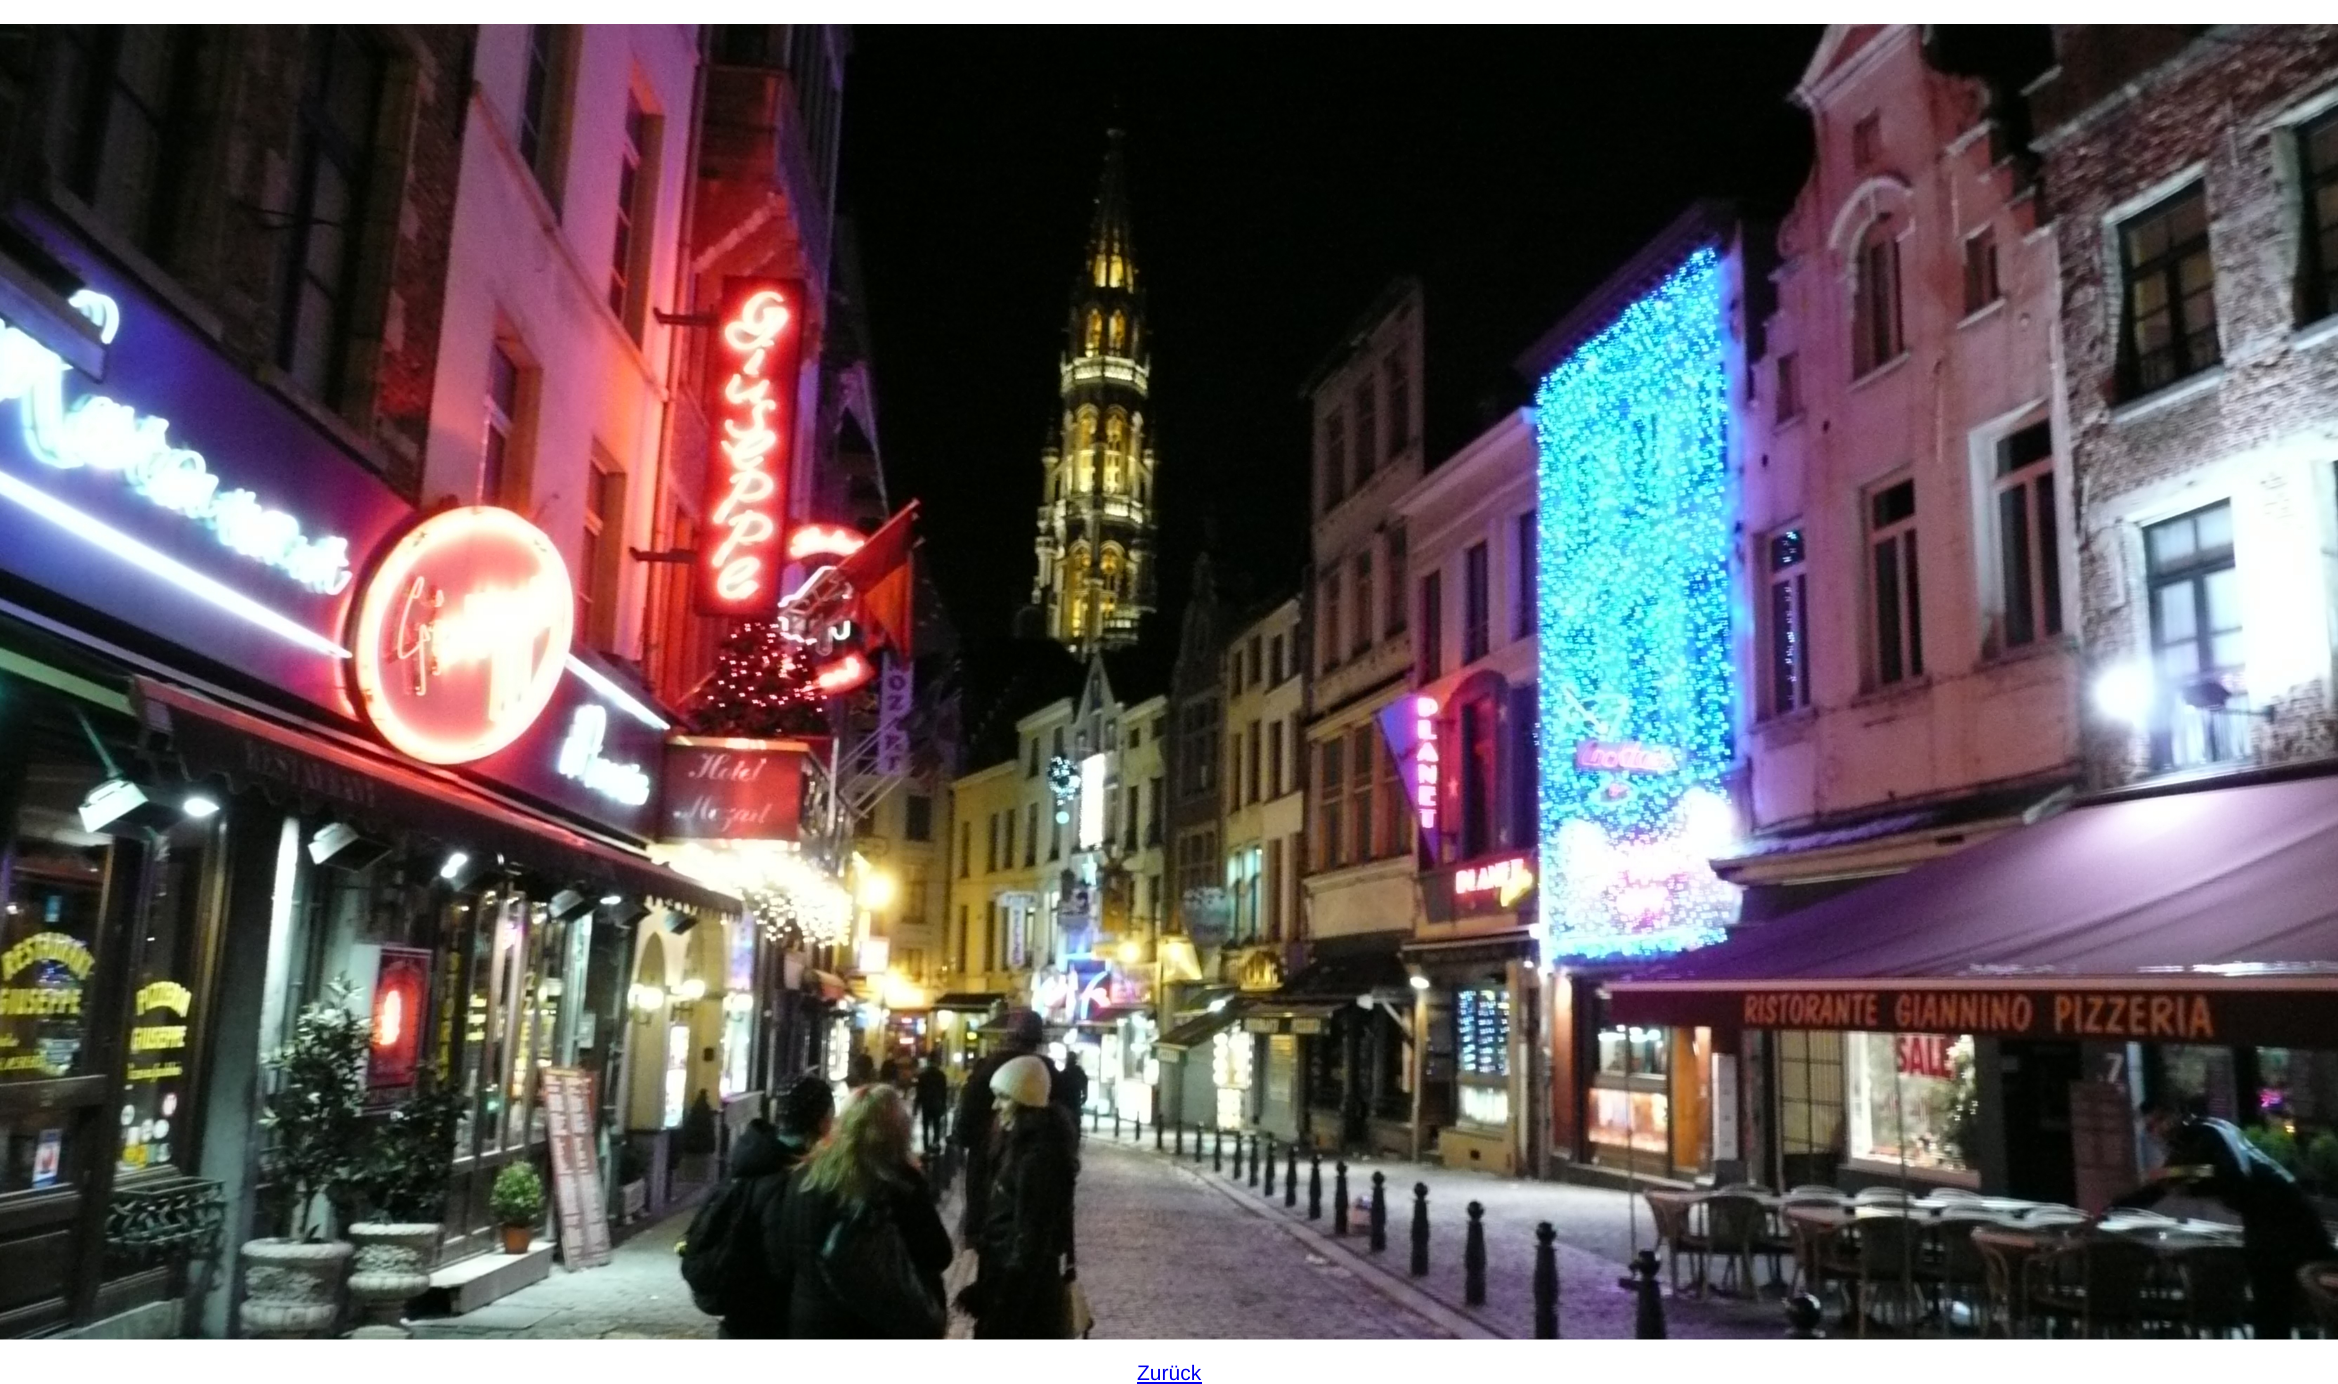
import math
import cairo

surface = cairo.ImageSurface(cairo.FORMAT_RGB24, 2338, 1384)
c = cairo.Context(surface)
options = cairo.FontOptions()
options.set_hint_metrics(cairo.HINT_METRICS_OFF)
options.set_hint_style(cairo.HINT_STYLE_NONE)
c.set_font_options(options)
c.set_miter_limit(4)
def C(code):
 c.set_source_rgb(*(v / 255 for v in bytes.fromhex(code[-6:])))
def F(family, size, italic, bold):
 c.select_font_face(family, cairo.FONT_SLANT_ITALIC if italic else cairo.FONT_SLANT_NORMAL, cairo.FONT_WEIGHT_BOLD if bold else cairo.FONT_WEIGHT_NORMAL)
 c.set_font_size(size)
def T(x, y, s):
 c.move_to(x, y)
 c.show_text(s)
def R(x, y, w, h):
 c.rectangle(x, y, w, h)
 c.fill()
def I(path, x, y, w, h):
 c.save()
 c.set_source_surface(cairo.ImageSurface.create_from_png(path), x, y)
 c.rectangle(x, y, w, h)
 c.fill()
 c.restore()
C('ffffff')
c.paint()
I('1.png',0,24,2338,1316)
F('Liberation Sans',21,0,0)
C('0000ee')
T(1137,1380,'Zurück')
R(1137,1382,65,2)
surface.write_to_png('o.png')
